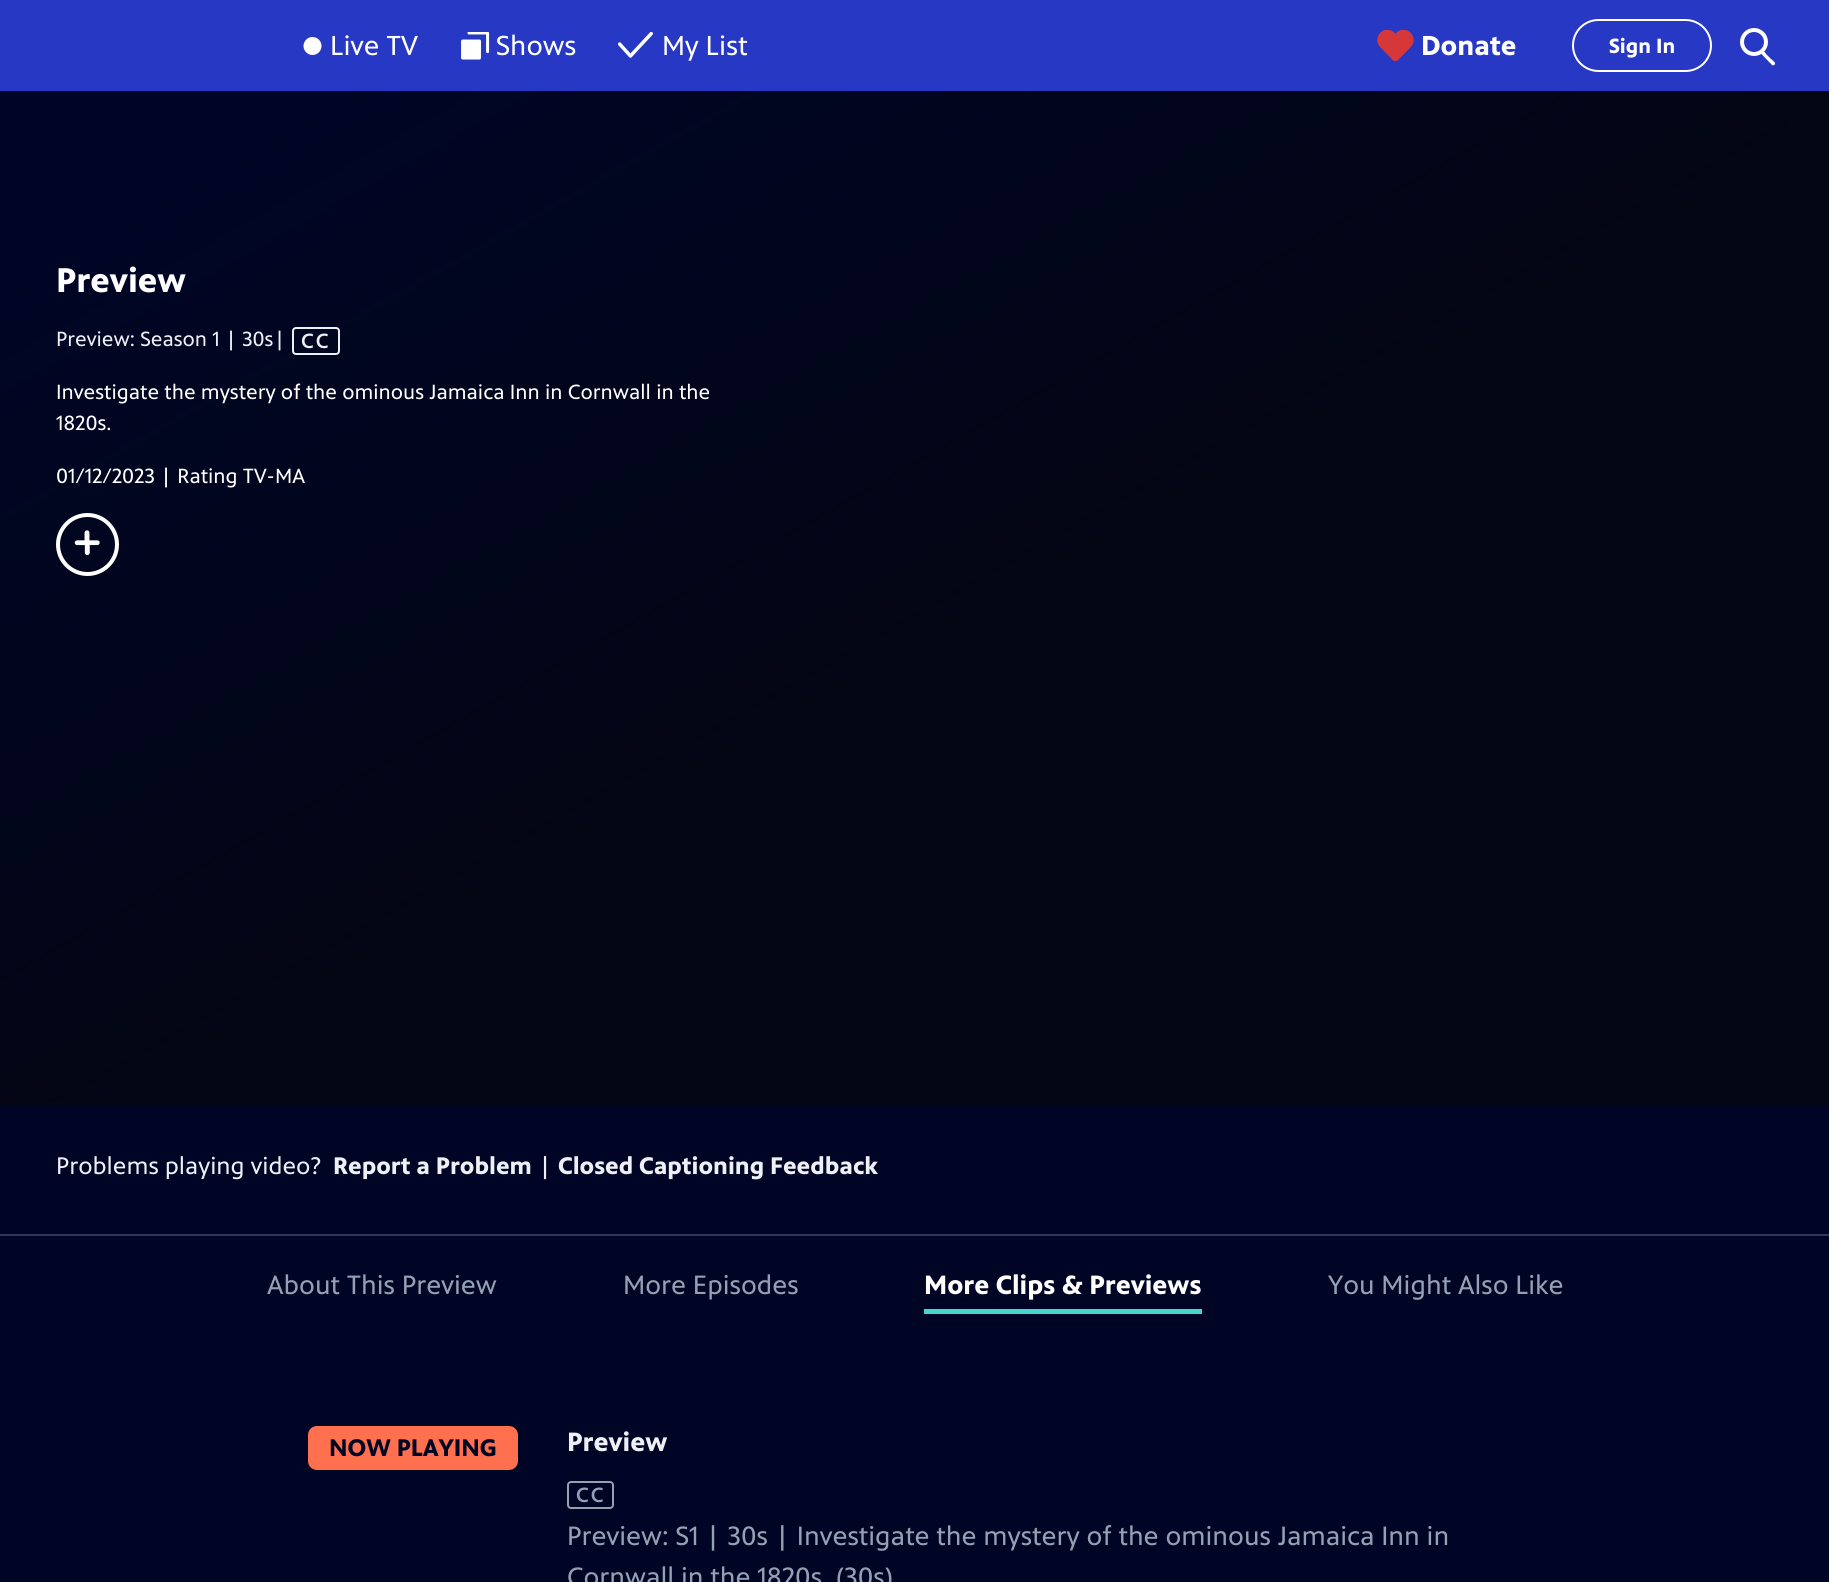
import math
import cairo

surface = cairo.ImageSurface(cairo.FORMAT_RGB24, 1829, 1582)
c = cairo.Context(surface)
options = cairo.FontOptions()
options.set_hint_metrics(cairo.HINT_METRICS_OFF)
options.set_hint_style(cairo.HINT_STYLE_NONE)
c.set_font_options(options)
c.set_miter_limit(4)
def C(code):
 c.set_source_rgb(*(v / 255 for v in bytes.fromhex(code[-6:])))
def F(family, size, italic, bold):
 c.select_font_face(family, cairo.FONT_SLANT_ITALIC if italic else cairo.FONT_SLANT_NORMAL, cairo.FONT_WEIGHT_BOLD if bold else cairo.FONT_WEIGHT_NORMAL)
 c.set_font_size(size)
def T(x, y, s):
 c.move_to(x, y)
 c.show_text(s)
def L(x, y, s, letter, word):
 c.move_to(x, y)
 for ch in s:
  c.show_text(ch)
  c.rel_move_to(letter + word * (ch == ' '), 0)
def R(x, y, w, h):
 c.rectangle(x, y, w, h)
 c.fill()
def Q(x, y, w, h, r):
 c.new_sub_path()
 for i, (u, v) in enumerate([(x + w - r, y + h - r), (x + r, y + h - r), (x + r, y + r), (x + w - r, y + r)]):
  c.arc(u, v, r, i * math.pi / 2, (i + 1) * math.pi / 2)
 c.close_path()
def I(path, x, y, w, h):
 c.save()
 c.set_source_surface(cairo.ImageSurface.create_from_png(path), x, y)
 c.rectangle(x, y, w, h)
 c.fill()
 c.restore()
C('000525')
c.paint()
C('2638c4')
R(0,0,1829,91)
C('ffffff')
c.arc(312.5,46,9,0,2 * math.pi)
c.fill()
F('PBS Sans',28,0,0)
T(330,55,'Live TV')
I('1.png',461,32,29,28)
T(496,55,'Shows')
I('2.png',618,32,35,26)
T(662,55,'My List')
I('3.png',1377,30,37,31)
F('PBS Sans',28,0,1)
T(1421,55,'Donate')
Q(1573,20,138,51,25.5)
c.stroke()
F('PBS Sans',21,0,1)
T(1609,53,'Sign In')
c.new_path()
c.arc(1754,42,12,0,2 * math.pi)
c.set_line_width(4)
c.stroke()
c.new_path()
c.move_to(1772,65)
c.line_to(1760,52.5)
c.line_to(1760,51)
c.curve_to(1762,48,1766,53.5,1766.5,54.5)
c.line_to(1770.5,58.5)
c.curve_to(1771.5,59.5,1774.5,61.5,1775,63)
c.curve_to(1775.5,65,1773,66,1772,65)
c.close_path()
c.fill()
C('040613')
R(0,91,1829,1015)
gradient = cairo.LinearGradient(471,-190,1359,1380)
gradient.add_color_stop_rgba(.1,0,0.02,0.145,1)
gradient.add_color_stop_rgba(.55,0,0.02,0.145,0)
c.set_source(gradient)
R(0,91,1788,1011)
F('PBS Sans',35,0,1)
C('ffffff')
T(56,292,'Preview')
F('PBS Sans',21,0,0)
C('eef0f5')
T(56,346,'Preview: Season 1 | 30s|')
Q(293,328,46,26,3)
c.set_line_width(2)
c.stroke()
F('PBS Sans Medium',21,0,0)
L(301,348,'CC',2,0)
F('PBS Sans',21,0,0)
C('ffffff')
T(56,399,'Investigate the mystery of the ominous Jamaica Inn in Cornwall in the')
T(56,430,'1820s.')
T(56,483,'01/12/2023 | Rating TV-MA')
c.new_path()
c.arc(87.5,544.5,29.5,0,2 * math.pi)
c.set_line_width(4)
c.stroke()
I('4.png',74,530,26,26)
F('PBS Sans',24.5,0,0)
C('eef0f5')
T(56,1174,'Problems playing video?')
F('PBS Sans',24.5,0,1)
T(333,1174,'Report a Problem')
F('PBS Sans',24.5,0,0)
T(538,1174,'|')
F('PBS Sans',24.5,0,1)
T(558,1174,'Closed Captioning Feedback')
C('2e3a55')
R(0,1234,1829,2)
F('PBS Sans',27.05,0,0)
C('94a1b2')
T(267,1294,'About This Preview')
T(623,1294,'More Episodes')
F('PBS Sans',27.05,0,1)
C('ffffff')
T(924,1294,'More Clips & Previews')
C('46d4cd')
R(924,1309,278,5)
F('PBS Sans',27.05,0,0)
C('94a1b2')
T(1328,1294,'You Might Also Like')
C('fe704e')
Q(308,1426,210,44,9)
c.fill()
F('PBS Sans',24.5,0,1)
C('000525')
T(329,1456,'NOW PLAYING')
F('PBS Sans',27.05,0,1)
C('eef0f5')
T(567,1451,'Preview')
Q(568,1482,45,26,3)
C('94a1b2')
c.set_line_width(2)
c.stroke()
F('PBS Sans Medium',21,0,0)
L(576,1502,'CC',2,0)
F('PBS Sans',27.05,0,0)
T(567,1545,'Preview: S1 | 30s | Investigate the mystery of the ominous Jamaica Inn in')
T(567,1586,'Cornwall in the 1820s. (30s)')
surface.write_to_png('o.png')
